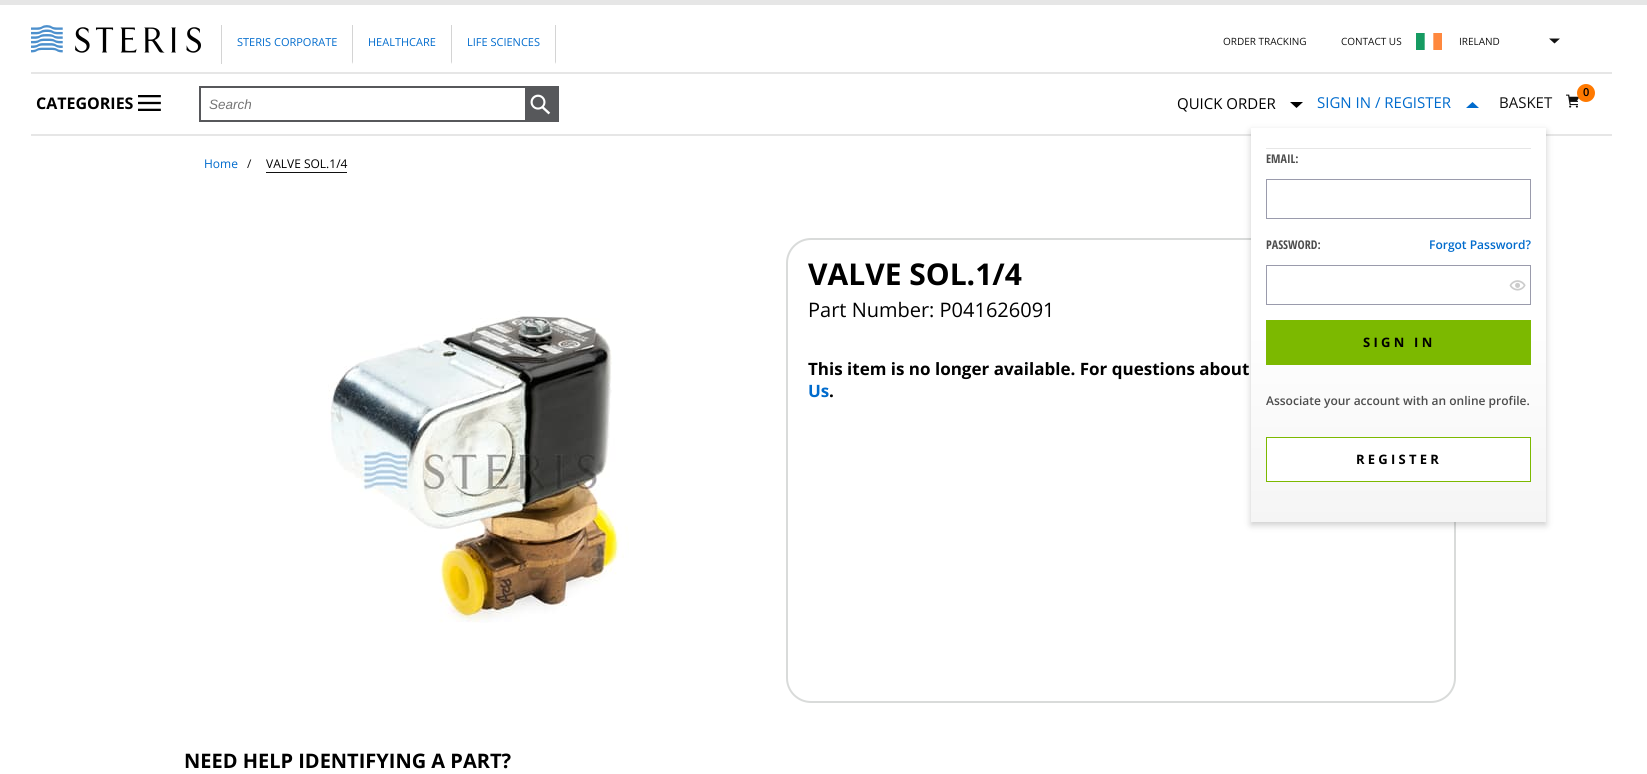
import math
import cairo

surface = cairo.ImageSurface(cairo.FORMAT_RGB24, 1647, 774)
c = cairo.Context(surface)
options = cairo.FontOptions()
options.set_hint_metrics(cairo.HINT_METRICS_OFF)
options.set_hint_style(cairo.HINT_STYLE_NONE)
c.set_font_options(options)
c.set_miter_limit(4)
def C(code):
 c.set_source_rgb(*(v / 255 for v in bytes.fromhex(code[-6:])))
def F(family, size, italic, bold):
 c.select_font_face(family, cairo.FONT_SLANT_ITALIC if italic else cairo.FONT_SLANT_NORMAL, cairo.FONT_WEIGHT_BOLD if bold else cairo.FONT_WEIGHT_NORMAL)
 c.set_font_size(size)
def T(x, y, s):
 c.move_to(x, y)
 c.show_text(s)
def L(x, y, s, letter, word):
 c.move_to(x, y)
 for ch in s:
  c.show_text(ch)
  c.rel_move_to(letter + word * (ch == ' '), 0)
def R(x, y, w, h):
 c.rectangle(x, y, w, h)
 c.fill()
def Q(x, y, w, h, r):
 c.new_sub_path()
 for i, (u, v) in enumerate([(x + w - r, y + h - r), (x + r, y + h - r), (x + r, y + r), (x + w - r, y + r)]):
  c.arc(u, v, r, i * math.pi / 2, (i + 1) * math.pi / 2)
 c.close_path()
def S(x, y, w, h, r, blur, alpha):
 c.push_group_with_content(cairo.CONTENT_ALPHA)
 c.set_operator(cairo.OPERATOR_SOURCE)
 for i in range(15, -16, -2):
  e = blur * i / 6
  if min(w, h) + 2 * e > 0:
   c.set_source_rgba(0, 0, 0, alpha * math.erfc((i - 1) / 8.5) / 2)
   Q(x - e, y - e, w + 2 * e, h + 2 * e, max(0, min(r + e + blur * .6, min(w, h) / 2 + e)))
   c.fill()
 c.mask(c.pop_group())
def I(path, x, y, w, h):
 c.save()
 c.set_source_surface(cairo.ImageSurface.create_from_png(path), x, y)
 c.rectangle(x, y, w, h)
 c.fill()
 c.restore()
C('ffffff')
c.paint()
C('e6e6e6')
R(0,0,1647,5)
I('1.png',31,25,170,28)
R(31,72,1581,2)
C('d4d4d4')
R(221,25,1,39)
c.new_path()
c.move_to(353,25)
c.line_to(353,64)
c.line_to(352,62)
c.line_to(352,25)
c.close_path()
c.fill()
F('Open Sans',11,0,0)
C('006bcd')
T(237,46,'STERIS CORPORATE')
C('d4d4d4')
c.new_path()
c.move_to(452,25)
c.line_to(452,64)
c.line_to(451,62)
c.line_to(451,25)
c.close_path()
c.fill()
C('006bcd')
T(368,46,'HEALTHCARE')
C('d4d4d4')
c.new_path()
c.move_to(556,25)
c.line_to(556,64)
c.line_to(555,62)
c.line_to(555,25)
c.close_path()
c.fill()
C('006bcd')
T(467,46,'LIFE SCIENCES')
F('Open Sans',10,0,0)
C('111111')
T(1223,45,'ORDER TRACKING')
T(1341,45,'CONTACT US')
I('2.png',1416,33,26,17)
c.new_path()
c.move_to(1560,38.5)
c.line_to(1549,38.5)
c.line_to(1554.5,43.5)
c.close_path()
c.fill()
T(1459,45,'IRELAND')
C('e6e6e6')
R(31,134,1581,2)
F('Open Sans',16,0,1)
C('000000')
T(36,109,'CATEGORIES')
I('3.png',138,95,23,16)
F('Open Sans',15,0,0)
T(1177,109,'QUICK ORDER')
c.new_path()
c.move_to(1303,102)
c.line_to(1290,102)
c.line_to(1296.5,108)
c.close_path()
c.fill()
c.rectangle(200,87,358,34)
C('57585b')
c.stroke()
F('Liberation Sans',13.5,1,0)
C('757575')
T(209,109,'Search')
C('57585b')
R(525,88,32,32)
I('4.png',530,94,21,21)
F('Open Sans',15,0,0)
C('006bcd')
T(1317,108,'SIGN IN / REGISTER')
c.new_path()
c.move_to(1466,108)
c.line_to(1479,108)
c.line_to(1472.5,102)
c.close_path()
c.fill()
I('5.png',1566,94,13,14)
C('ff7900')
c.arc(1586,93,9,0,2 * math.pi)
c.fill()
F('Open Sans SemiBold',11,0,0)
C('000000')
T(1583,96,'0')
F('Open Sans',15,0,0)
C('111111')
T(1499,108,'BASKET')
Q(787,239,668,463,24)
C('d9dbda')
c.stroke()
C('000000')
S(1251,131,295,394,0,3.5,.2)
gradient = cairo.LinearGradient(1399,128,1399,522)
gradient.add_color_stop_rgba(.46,1,1,1,1)
gradient.add_color_stop_rgba(1,0.961,0.961,0.961,1)
c.set_source(gradient)
R(1251,128,295,394)
F('Open Sans Condensed',12,0,1)
C('4d4d4d')
T(1266,163,'EMAIL:')
c.rectangle(1266.5,179.5,264,39)
C('9a9bac')
c.set_line_width(1)
c.stroke()
C('4d4d4d')
T(1266,249,'PASSWORD:')
F('Open Sans SemiBold',12,0,0)
C('006bcd')
T(1429,249,'Forgot Password?')
c.rectangle(1266.5,265.5,264,39)
C('9a9bac')
c.stroke()
I('6.png',1509,280,17,11)
C('7cb900')
R(1266,320,265,45)
F('Open Sans',13,0,1)
C('000000')
L(1363,347,'SIGN IN',3.25,0)
C('e6e6e6')
R(1266,148,265,1)
F('Open Sans SemiBold',12,0,0)
C('4d4d4d')
T(1266,405,'Associate your account with an online profile.')
C('ffffff')
c.rectangle(1266.5,437.5,264,44)
c.fill_preserve()
C('7cb900')
c.stroke()
F('Open Sans',13,0,1)
C('000000')
L(1356,464,'REGISTER',3.25,0)
F('Open Sans',12,0,0)
C('006bcd')
T(204,168,'Home')
C('111111')
T(247,168,'∕')
C('000000')
T(266,168,'VALVE SOL.1/4')
C('111111')
R(266,172,81,1)
I('7.png',328,311,301,312)
F('Open Sans',30,0,1)
C('000000')
T(808,285,'VALVE SOL.1/4')
F('Open Sans',20,0,0)
T(808,317,'Part Number: P041626091')
F('Open Sans',17,0,1)
T(808,375,'This item is no longer available. For questions about')
C('006bcd')
T(808,397,'Us')
C('000000')
T(829,397,'.')
F('Open Sans',20,0,1)
T(184,768,'NEED HELP IDENTIFYING A PART?')
surface.write_to_png('o.png')
